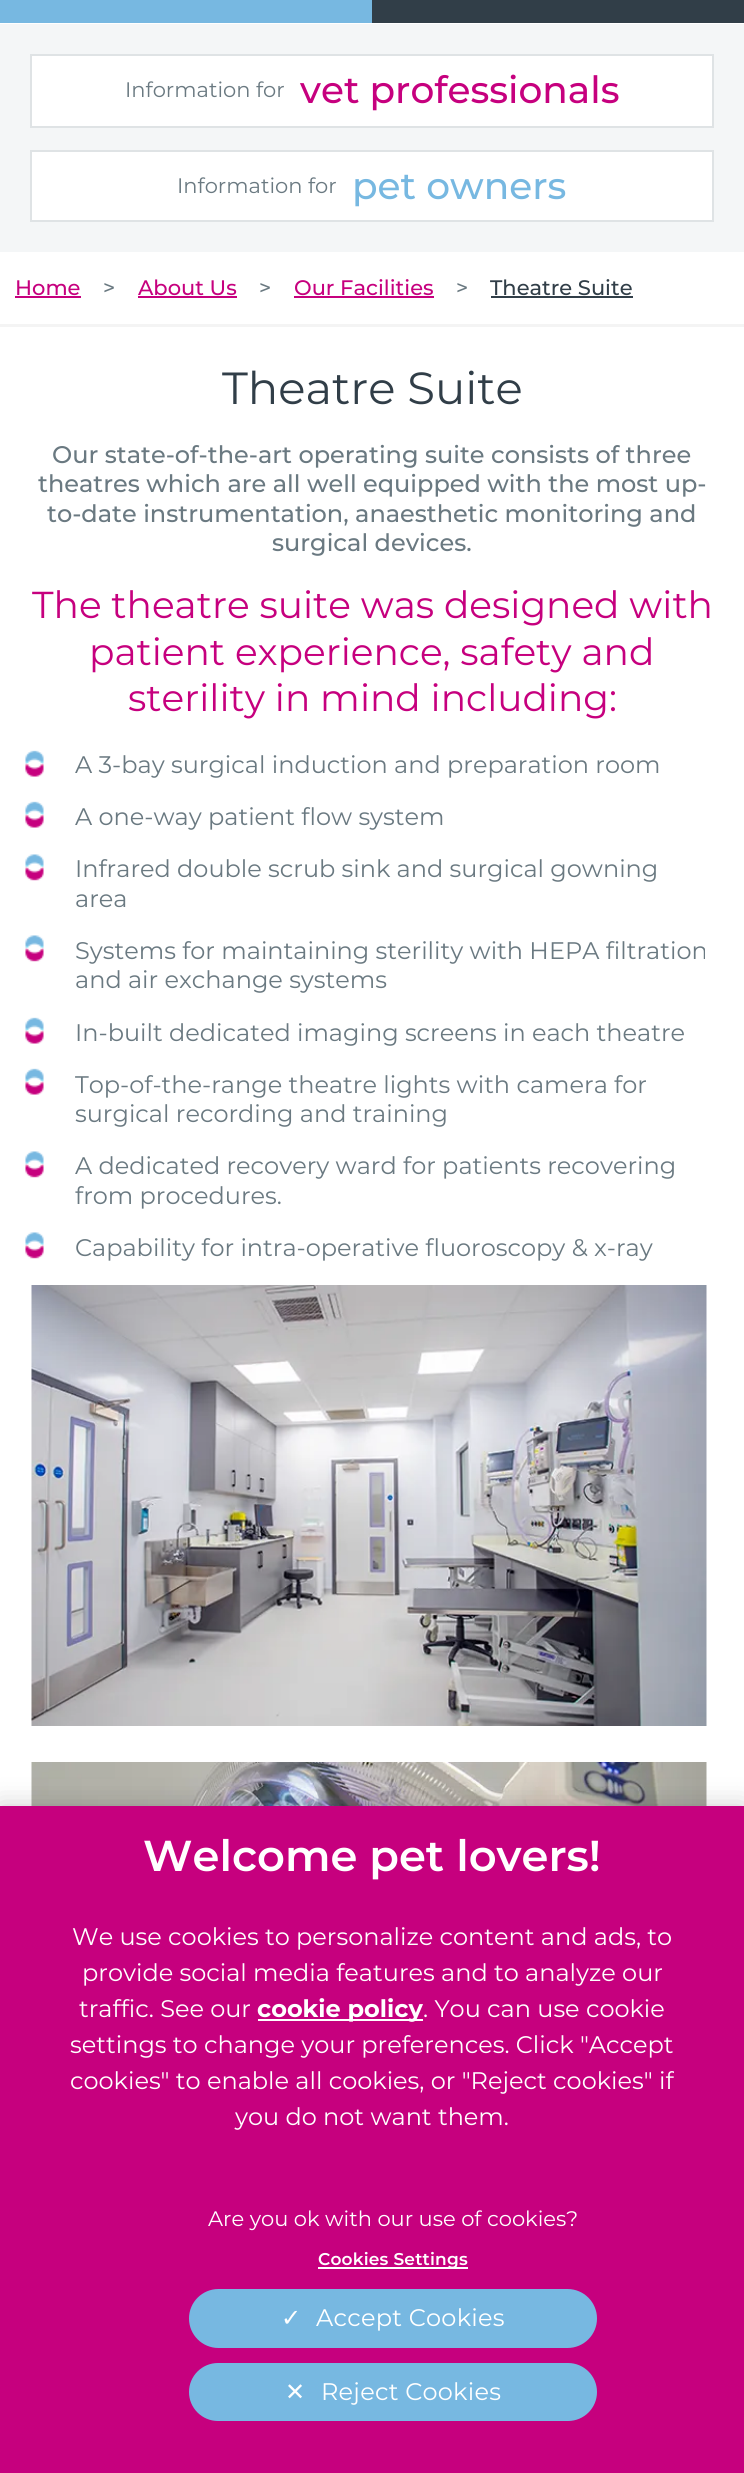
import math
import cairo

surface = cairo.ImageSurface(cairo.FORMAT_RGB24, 744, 2473)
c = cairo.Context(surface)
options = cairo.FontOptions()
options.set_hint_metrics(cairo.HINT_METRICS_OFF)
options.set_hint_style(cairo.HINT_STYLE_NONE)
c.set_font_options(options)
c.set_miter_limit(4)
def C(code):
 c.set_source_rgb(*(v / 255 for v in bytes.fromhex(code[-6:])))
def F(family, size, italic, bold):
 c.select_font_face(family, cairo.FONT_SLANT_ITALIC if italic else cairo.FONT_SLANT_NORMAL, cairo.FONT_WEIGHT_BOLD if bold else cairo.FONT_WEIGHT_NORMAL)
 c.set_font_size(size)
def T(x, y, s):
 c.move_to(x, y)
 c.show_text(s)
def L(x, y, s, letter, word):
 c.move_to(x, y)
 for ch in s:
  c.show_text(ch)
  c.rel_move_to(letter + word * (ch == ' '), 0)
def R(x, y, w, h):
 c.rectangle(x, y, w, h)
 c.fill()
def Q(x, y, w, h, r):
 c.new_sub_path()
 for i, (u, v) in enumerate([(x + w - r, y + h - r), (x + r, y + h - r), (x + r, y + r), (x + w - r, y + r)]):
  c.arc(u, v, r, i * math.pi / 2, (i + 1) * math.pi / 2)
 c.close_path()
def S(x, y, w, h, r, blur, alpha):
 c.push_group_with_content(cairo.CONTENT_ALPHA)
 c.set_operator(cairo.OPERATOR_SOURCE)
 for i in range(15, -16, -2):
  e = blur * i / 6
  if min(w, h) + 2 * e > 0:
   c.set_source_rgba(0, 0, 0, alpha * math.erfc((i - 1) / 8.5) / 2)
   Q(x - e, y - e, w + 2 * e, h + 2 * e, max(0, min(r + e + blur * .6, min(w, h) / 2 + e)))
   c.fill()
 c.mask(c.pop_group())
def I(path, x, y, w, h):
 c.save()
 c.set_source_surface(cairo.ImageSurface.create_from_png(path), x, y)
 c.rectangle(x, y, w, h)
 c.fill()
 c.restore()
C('ffffff')
c.paint()
C('77b8e1')
R(0,0,372,23)
C('313e48')
R(372,0,372,23)
C('f4f6f7')
R(0,24,744,228)
C('ffffff')
c.rectangle(31,55,682,72)
c.fill_preserve()
C('dfe3e5')
c.stroke()
F('Montserrat',21,0,0)
C('6a7981')
T(125,97,'Information for')
F('Montserrat Medium',37.5,0,0)
C('c6007e')
T(300,103,'vet professionals')
C('ffffff')
c.rectangle(31,151,682,70)
c.fill_preserve()
C('dfe3e5')
c.stroke()
F('Montserrat',21,0,0)
C('6a7981')
T(177,193,'Information for')
F('Montserrat Medium',37.5,0,0)
C('77b8e1')
T(352,199,'pet owners')
C('f4f4f4')
R(0,324,744,3)
F('Montserrat Medium',21,0,0)
C('c6007e')
T(15,295,'Home')
R(15,296,66,2)
C('6a7981')
T(103,295,'>')
C('c6007e')
T(138,295,'About Us')
R(138,296,99,2)
C('6a7981')
T(259,295,'>')
C('c6007e')
T(294,295,'Our Facilities')
R(294,296,140,2)
C('6a7981')
T(456,295,'>')
C('313e48')
T(490,295,'Theatre Suite')
R(491,296,142,2)
F('Montserrat',45,0,0)
T(222,404,'Theatre Suite')
F('Montserrat Medium',24,0,0)
C('6a7981')
T(52,463,'Our state-of-the-art operating suite consists of three')
T(38,492,'theatres which are all well equipped with the most up-')
T(47,522,'to-date instrumentation, anaesthetic monitoring and')
T(272,551,'surgical devices.')
F('Montserrat',37.5,0,0)
C('c6007e')
T(32,618,'The theatre suite was designed with')
T(89,665,'patient experience, safety and')
T(128,711,'sterility in mind including:')
I('1.png',25,750,19,27)
F('Montserrat',24,0,0)
C('6a7981')
T(75,773,'A 3-bay surgical induction and preparation room')
I('1.png',25,801,19,27)
T(75,825,'A one-way patient flow system')
I('2.png',25,854,19,27)
T(75,877,'Infrared double scrub sink and surgical gowning')
T(75,907,'area')
I('2.png',25,935,19,27)
T(75,959,'Systems for maintaining sterility with HEPA filtration')
T(75,988,'and air exchange systems')
I('1.png',25,1017,19,27)
T(75,1041,'In-built dedicated imaging screens in each theatre')
I('1.png',25,1068,19,27)
T(75,1093,'Top-of-the-range theatre lights with camera for')
T(75,1122,'surgical recording and training')
I('2.png',25,1151,19,27)
T(75,1174,'A dedicated recovery ward for patients recovering')
T(75,1204,'from procedures.')
I('2.png',25,1232,19,27)
T(75,1256,'Capability for intra-operative fluoroscopy & x-ray')
I('3.png',31,1285,676,441)
I('4.png',31,1762,676,44)
C('000000')
S(0,1806,744,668,0,13.5,.2)
C('c6007e')
R(0,1806,744,667)
F('Montserrat SemiBold',43.25,0,0)
C('ffffff')
T(143,1871,'Welcome pet lovers!')
F('Montserrat',24,0,0)
T(72,1945,'We use cookies to personalize content and ads, to')
T(82,1981,'provide social media features and to analyze our')
T(79,2017,'traffic. See our')
R(258,2019,165,2)
F('Montserrat',24,0,1)
T(257,2017,'cookie policy')
F('Montserrat',24,0,0)
T(423,2017,'. You can use cookie')
T(70,2053,'settings to change your preferences. Click "Accept')
T(70,2089,'cookies" to enable all cookies, or "Reject cookies" if')
T(235,2125,'you do not want them.')
F('Montserrat',21,0,0)
T(208,2226,'Are you ok with our use of cookies?')
R(318,2267,150,2)
F('Montserrat SemiBold',17,0,0)
L(318,2265,'Cookies Settings',.2,0)
C('77b8e1')
Q(189,2289,408,59,29.5)
c.fill()
F('DejaVu Sans',24,0,0)
C('ffffff')
L(281,2326,'✓',.25,0)
F('Montserrat',24,0,0)
L(316,2326,'Accept Cookies',.25,0)
C('77b8e1')
Q(189,2363,408,58,29)
c.fill()
F('DejaVu Sans',24,0,0)
C('ffffff')
L(285,2400,'✕',.25,0)
F('Montserrat',24,0,0)
L(321,2400,'Reject Cookies',.25,0)
surface.write_to_png('o.png')
